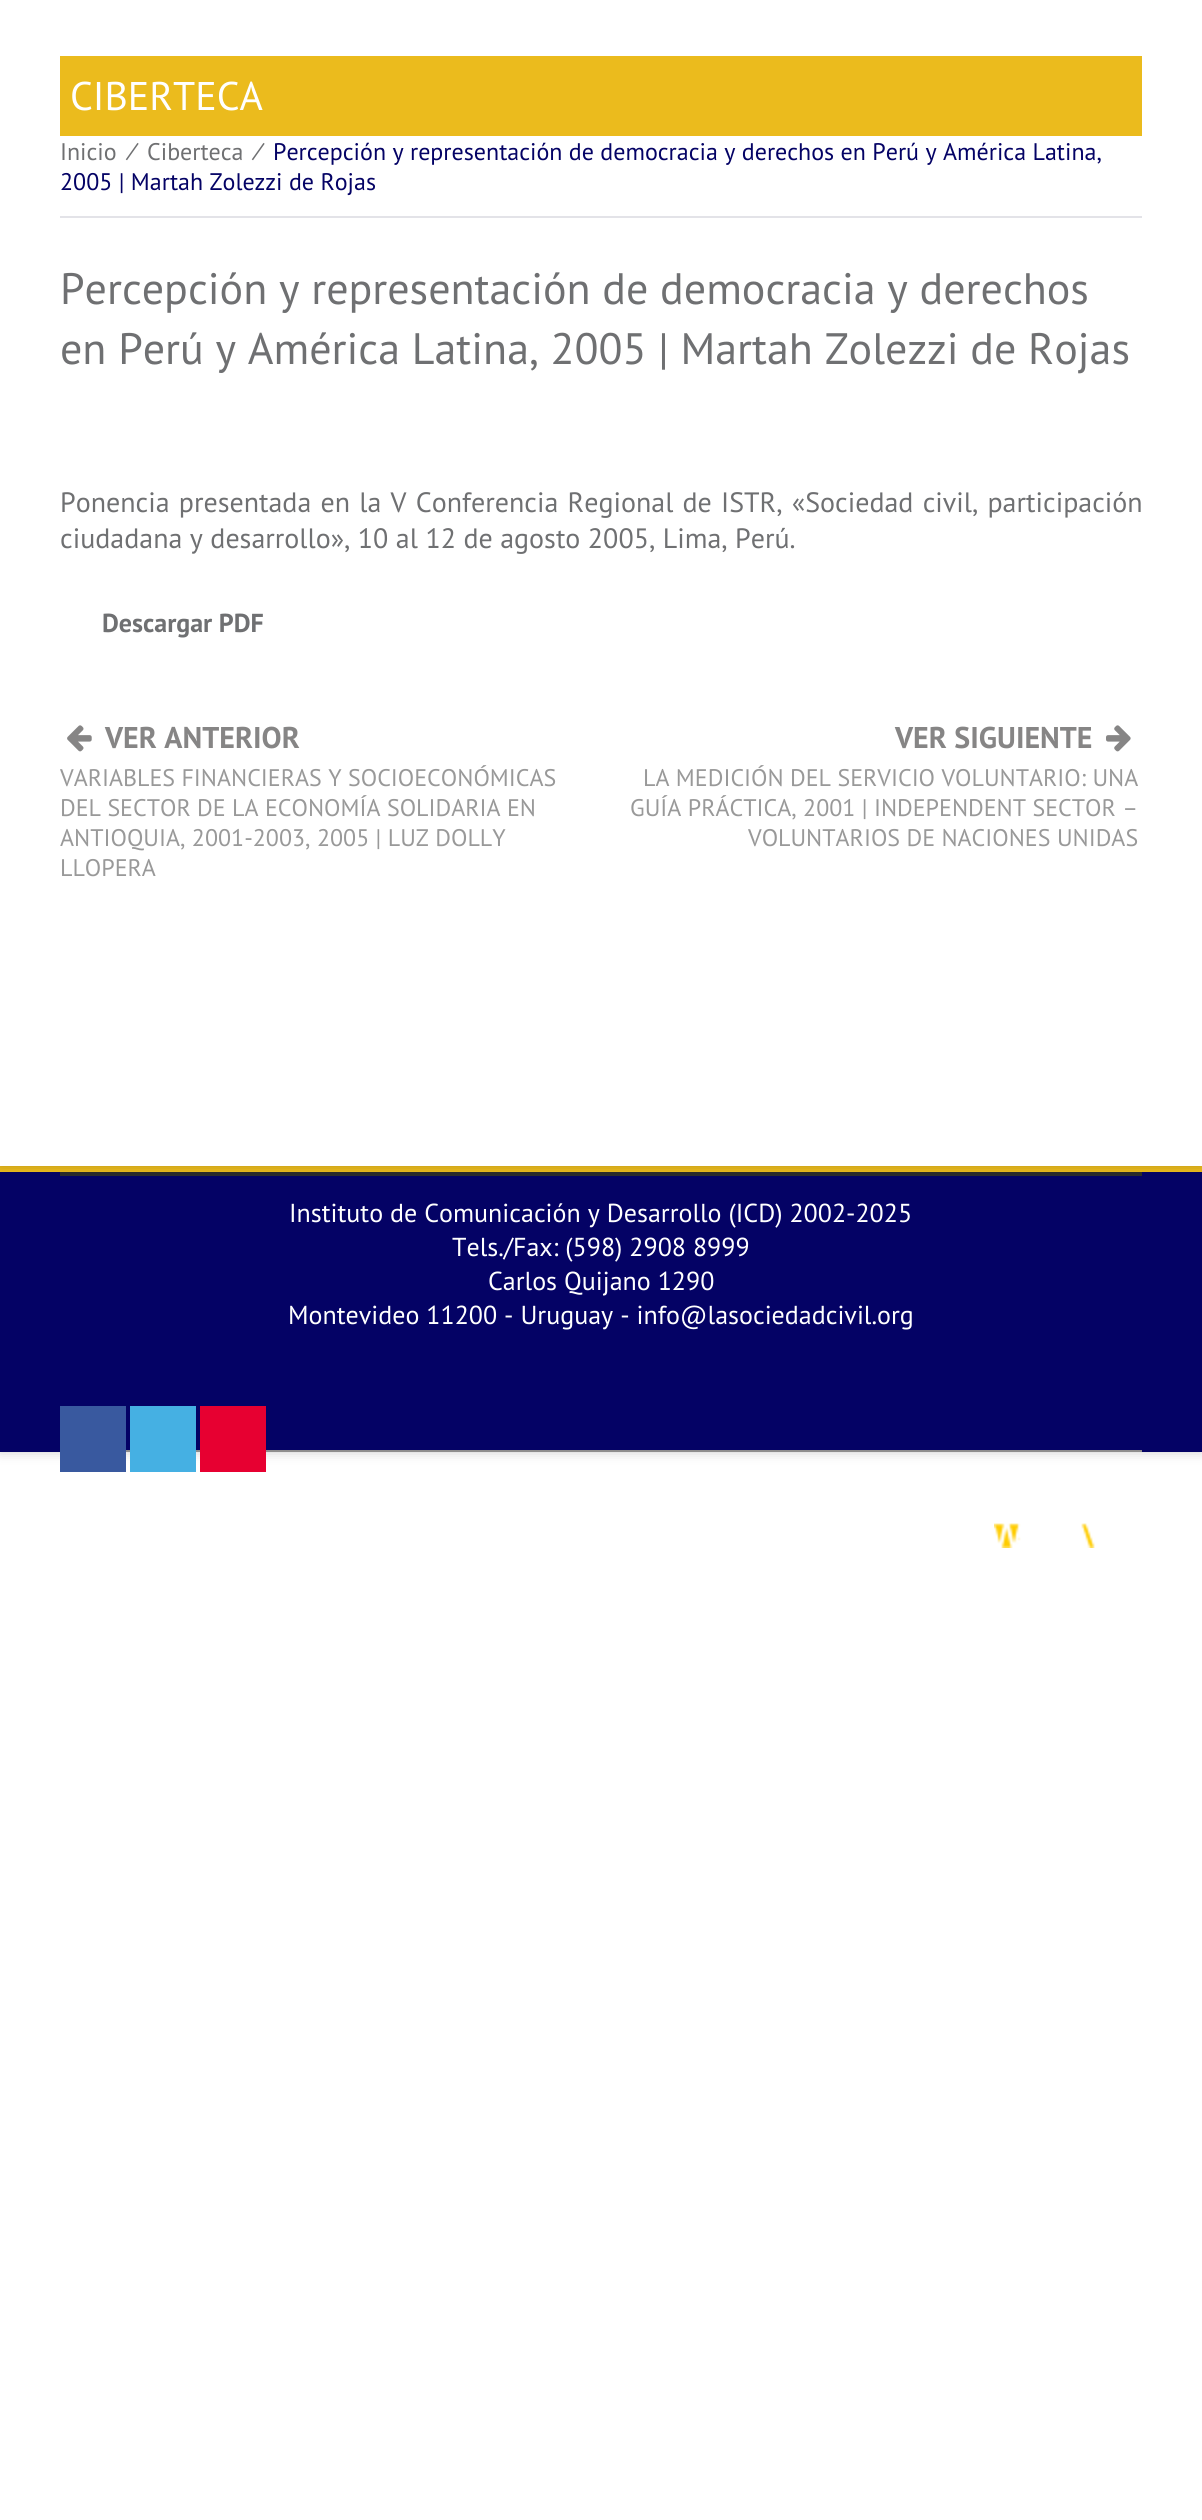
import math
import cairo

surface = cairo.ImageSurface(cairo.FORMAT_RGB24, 1202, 2520)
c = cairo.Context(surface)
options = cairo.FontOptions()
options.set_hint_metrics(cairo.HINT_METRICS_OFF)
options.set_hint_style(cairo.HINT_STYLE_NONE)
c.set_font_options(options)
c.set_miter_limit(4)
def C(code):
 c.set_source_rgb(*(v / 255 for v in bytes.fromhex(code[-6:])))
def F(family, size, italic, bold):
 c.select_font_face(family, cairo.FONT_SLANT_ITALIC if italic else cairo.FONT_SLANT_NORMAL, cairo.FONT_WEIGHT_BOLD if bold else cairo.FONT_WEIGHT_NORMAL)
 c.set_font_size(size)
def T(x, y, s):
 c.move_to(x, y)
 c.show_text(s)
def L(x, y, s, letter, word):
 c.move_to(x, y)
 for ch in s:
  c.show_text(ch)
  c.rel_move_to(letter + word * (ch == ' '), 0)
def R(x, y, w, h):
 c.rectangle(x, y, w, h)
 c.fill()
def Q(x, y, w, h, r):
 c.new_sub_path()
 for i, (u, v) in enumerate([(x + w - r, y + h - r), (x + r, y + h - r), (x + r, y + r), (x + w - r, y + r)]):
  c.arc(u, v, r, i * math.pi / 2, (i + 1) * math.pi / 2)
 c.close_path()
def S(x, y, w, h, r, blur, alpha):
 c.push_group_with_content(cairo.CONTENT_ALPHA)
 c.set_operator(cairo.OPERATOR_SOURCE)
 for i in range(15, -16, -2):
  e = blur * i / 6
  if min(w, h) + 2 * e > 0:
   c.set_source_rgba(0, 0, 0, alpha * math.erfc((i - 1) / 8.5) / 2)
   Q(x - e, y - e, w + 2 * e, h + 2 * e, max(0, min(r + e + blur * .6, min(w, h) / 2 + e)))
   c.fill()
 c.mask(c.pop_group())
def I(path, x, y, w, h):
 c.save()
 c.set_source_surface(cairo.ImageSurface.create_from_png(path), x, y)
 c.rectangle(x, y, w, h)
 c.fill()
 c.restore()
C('ffffff')
c.paint()
C('000000')
S(0,1166,1202,286,0,6,.2)
C('040265')
R(0,1172,1202,280)
C('ebbb1d')
R(0,1166,1202,6)
C('2b2b2b')
R(60,1172,1082,4)
C('000000')
S(0,0,1202,1166,0,6,.2)
C('ffffff')
R(0,0,1202,1166)
C('ebbb1d')
R(60,56,1082,80)
F('PT Sans',40,0,0)
C('ffffff')
T(70,110,'CIBERTECA')
C('e3e3e8')
R(60,216,1082,2)
F('PT Sans',24,0,0)
C('6f7072')
T(60,160,'Inicio')
T(130,160,'⁄')
T(147,160,'Ciberteca')
T(256,160,'⁄')
C('040265')
T(273,160,'Percepción y representación de democracia y derechos en Perú y América Latina,')
T(60,190,'2005 | Martah Zolezzi de Rojas')
F('PT Sans',44,0,0)
C('6f7072')
T(60,304,'Percepción y representación de democracia y derechos')
T(60,364,'en Perú y América Latina, 2005 | Martah Zolezzi de Rojas')
F('PT Sans',28,0,0)
L(60,512,'Ponencia presentada en la V Conferencia Regional de ISTR, «Sociedad civil, participación',0,1.75)
T(60,548,'ciudadana y desarrollo», 10 al 12 de agosto 2005, Lima, Perú.')
F('PT Sans',26,0,1)
T(102,632,'Descargar PDF')
I('1.png',67,725,25,27)
F('PT Sans',30,0,1)
C('868585')
T(105,748,'VER ANTERIOR')
F('PT Sans',24,0,0)
C('999999')
T(60,786,'VARIABLES FINANCIERAS Y SOCIOECONÓMICAS')
T(60,816,'DEL SECTOR DE LA ECONOMÍA SOLIDARIA EN')
T(60,846,'ANTIOQUIA, 2001-2003, 2005 | LUZ DOLLY')
T(60,876,'LLOPERA')
F('PT Sans',30,0,1)
C('868585')
T(895,748,'VER SIGUIENTE')
I('2.png',1106,725,25,27)
F('PT Sans',24,0,0)
C('999999')
T(643,786,'LA MEDICIÓN DEL SERVICIO VOLUNTARIO: UNA')
T(630,816,'GUÍA PRÁCTICA, 2001 | INDEPENDENT SECTOR –')
T(748,846,'VOLUNTARIOS DE NACIONES UNIDAS')
F('PT Sans',26,0,0)
C('ffffff')
T(289,1222,'Instituto de Comunicación y Desarrollo (ICD) 2002-2025')
T(452,1256,'Tels./Fax: (598) 2908 8999')
T(488,1290,'Carlos Quijano 1290')
T(288,1324,'Montevideo 11200 - Uruguay - info@lasociedadcivil.org')
C('39599f')
R(60,1406,66,66)
C('8f8e8e')
R(126,1450,1016,2)
C('45b0e3')
R(130,1406,66,66)
C('e70031')
R(200,1406,66,66)
I('3.png',994,1523,101,25)
surface.write_to_png('o.png')
